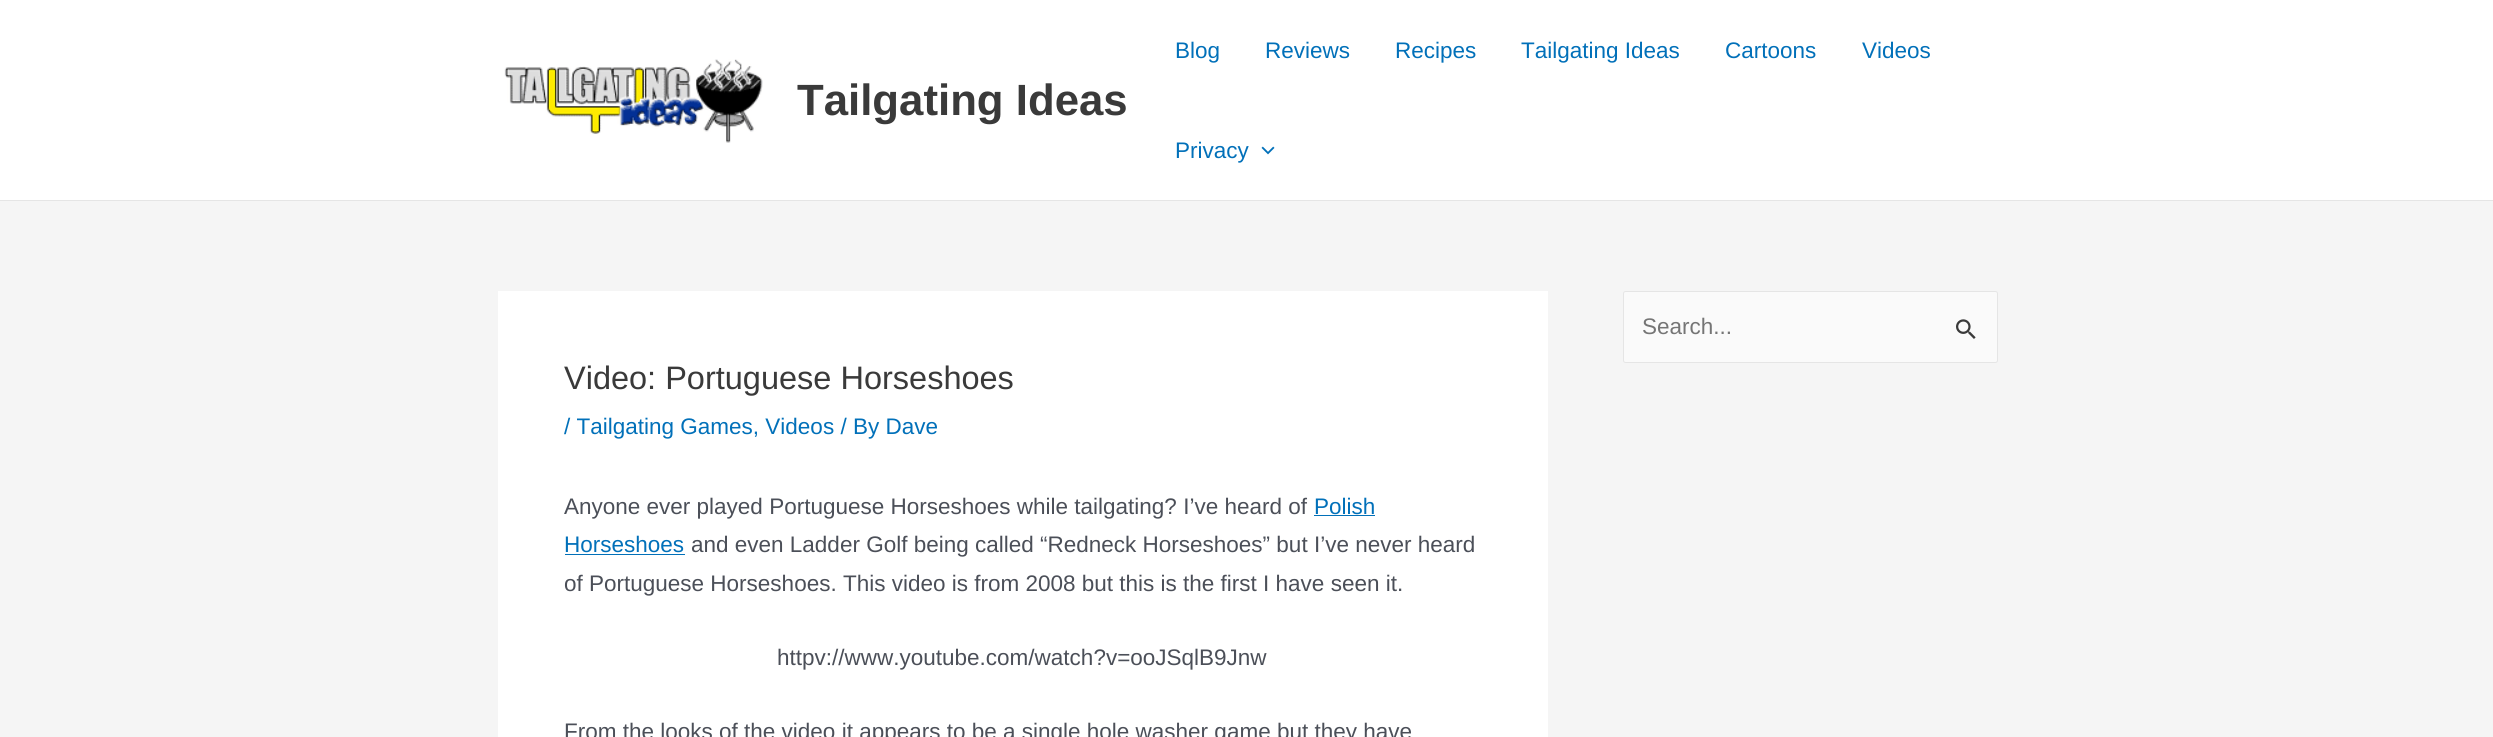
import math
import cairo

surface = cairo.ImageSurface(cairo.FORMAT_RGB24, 2493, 737)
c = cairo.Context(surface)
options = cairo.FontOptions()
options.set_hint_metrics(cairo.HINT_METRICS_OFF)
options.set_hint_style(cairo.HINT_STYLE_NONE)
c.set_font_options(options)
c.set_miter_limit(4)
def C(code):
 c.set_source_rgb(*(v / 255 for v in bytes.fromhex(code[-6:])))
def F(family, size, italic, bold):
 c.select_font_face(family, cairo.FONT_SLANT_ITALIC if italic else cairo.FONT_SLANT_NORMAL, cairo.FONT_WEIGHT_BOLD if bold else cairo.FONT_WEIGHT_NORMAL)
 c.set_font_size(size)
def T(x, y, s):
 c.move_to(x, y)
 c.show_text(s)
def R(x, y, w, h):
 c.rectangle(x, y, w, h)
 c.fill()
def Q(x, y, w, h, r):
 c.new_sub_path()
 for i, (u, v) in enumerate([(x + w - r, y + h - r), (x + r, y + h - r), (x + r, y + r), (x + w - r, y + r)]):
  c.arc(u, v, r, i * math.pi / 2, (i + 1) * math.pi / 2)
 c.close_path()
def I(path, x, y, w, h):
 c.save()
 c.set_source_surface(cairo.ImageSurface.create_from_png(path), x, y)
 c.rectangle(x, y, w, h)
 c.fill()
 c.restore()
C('f5f5f5')
c.paint()
C('ffffff')
R(0,0,2493,200)
C('e5e5e5')
R(0,200,2493,1)
I('1.png',504,59,259,84)
F('Liberation Sans',43.75,0,1)
C('3a3a3a')
T(797,115,'Tailgating Ideas')
F('Liberation Sans',22.5,0,0)
C('0170b9')
T(1175,58,'Blog')
T(1265,58,'Reviews')
T(1395,58,'Recipes')
T(1521,58,'Tailgating Ideas')
T(1725,58,'Cartoons')
T(1862,58,'Videos')
T(1175,158,'Privacy')
I('2.png',1261,146,14,9)
C('fafafa')
Q(1623.5,291.5,374,71,2)
c.fill_preserve()
C('e5e5e5')
c.set_line_width(1)
c.stroke()
C('757575')
T(1642,334,'Search...')
I('3.png',1956,319,20,20)
C('ffffff')
R(498,291,1050,446)
F('Liberation Sans',32.5,0,0)
C('3a3a3a')
T(564,389,'Video: Portuguese Horseshoes')
F('Liberation Sans',22.5,0,0)
C('0170b9')
T(564,434,'/ Tailgating Games, Videos / By Dave')
C('4b4f58')
T(564,514,'Anyone ever played Portuguese Horseshoes while tailgating? I’ve heard of')
C('0170b9')
T(1314,514,'Polish')
R(1314,515,61,1)
T(564,552,'Horseshoes')
R(565,554,120,1)
C('4b4f58')
T(691,552,'and even Ladder Golf being called “Redneck Horseshoes” but I’ve never heard')
T(564,591,'of Portuguese Horseshoes. This video is from 2008 but this is the first I have seen it.')
T(777,665,'httpv://www.youtube.com/watch?v=ooJSqlB9Jnw')
T(564,739,'From the looks of the video it appears to be a single hole washer game but they have')
surface.write_to_png('o.png')
